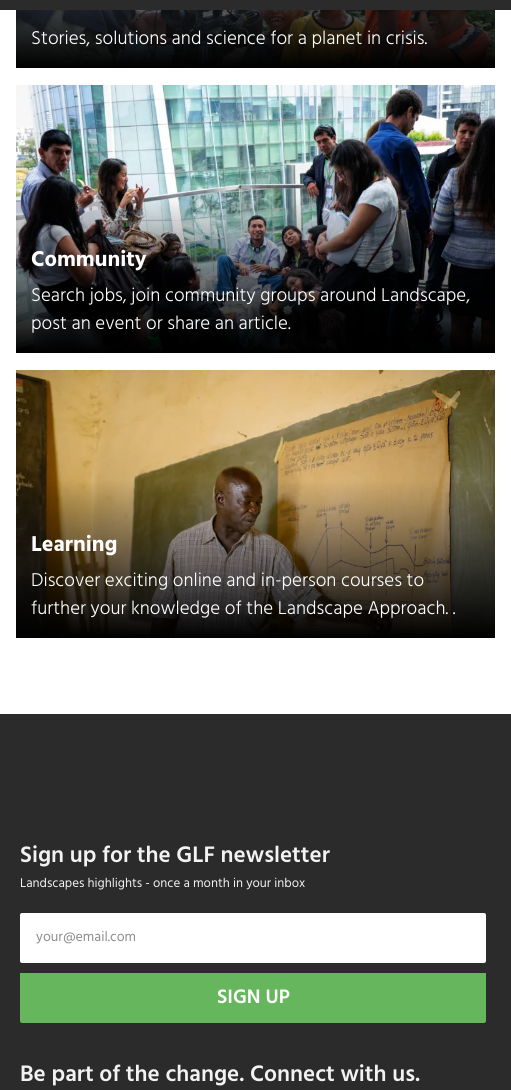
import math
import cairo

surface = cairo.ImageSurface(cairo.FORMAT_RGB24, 511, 1090)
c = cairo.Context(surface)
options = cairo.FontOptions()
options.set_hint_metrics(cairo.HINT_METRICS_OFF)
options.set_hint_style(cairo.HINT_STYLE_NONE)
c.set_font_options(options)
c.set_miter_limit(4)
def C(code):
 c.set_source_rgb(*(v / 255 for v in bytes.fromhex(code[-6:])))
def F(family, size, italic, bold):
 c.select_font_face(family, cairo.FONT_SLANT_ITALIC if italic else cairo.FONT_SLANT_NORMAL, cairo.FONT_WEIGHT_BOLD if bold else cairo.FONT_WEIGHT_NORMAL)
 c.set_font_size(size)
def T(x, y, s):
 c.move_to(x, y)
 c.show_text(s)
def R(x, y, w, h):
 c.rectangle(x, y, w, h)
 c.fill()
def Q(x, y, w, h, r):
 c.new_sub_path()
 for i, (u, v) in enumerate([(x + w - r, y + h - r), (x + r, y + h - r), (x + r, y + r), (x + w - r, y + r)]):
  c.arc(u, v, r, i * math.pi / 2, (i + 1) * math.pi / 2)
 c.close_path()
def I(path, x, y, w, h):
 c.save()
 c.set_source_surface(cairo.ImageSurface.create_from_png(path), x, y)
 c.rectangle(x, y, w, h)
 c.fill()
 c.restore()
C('ffffff')
c.paint()
C('2b2b2b')
R(0,0,511,10)
I('1.png',16,10,479,58)
F('Hind Light',19,0,0)
C('ffffff')
T(31,44,'Stories, solutions and science for a planet in crisis.')
I('2.png',16,85,479,268)
F('Hind',22,0,1)
T(31,266,'Community')
F('Hind Light',19,0,0)
T(31,301,'Search jobs, join community groups around Landscape,')
T(31,329,'post an event or share an article.')
I('3.png',16,370,479,268)
F('Hind',22,0,1)
T(31,551,'Learning')
F('Hind Light',19,0,0)
T(31,586,'Discover exciting online and in-person courses to')
T(31,614,'further your knowledge of the Landscape Approach. .')
C('2b2b2b')
R(0,714,511,376)
F('Hind SemiBold',23,0,0)
C('f2f2f2')
T(20,862,'Sign up for the GLF newsletter')
F('Hind',13,0,0)
T(20,887,'Landscapes highlights - once a month in your inbox')
C('ffffff')
Q(20,913,466,50,2)
c.fill()
F('Hind',14,0,0)
C('8d8c8e')
T(36,941,'your@email.com')
C('66b65d')
c.new_path()
c.move_to(20,973)
c.line_to(486,973)
c.line_to(486,1021)
c.curve_to(486,1022,485,1023,484,1023)
c.line_to(22,1023)
c.curve_to(21,1023,20,1022,20,1021)
c.close_path()
c.fill()
F('Hind SemiBold',20,0,0)
C('ffffff')
T(217,1003,'SIGN UP')
F('Hind SemiBold',23,0,0)
C('f2f2f2')
T(20,1081,'Be part of the change. Connect with us.')
surface.write_to_png('o.png')
